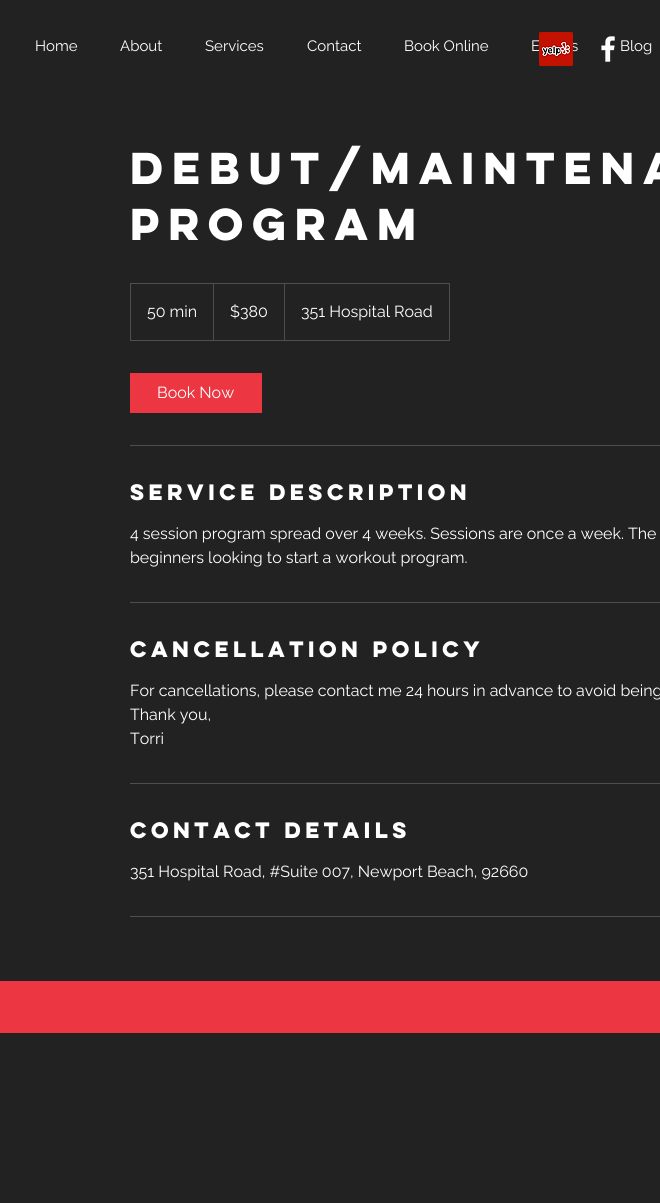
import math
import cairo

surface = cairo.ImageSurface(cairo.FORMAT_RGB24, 660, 1203)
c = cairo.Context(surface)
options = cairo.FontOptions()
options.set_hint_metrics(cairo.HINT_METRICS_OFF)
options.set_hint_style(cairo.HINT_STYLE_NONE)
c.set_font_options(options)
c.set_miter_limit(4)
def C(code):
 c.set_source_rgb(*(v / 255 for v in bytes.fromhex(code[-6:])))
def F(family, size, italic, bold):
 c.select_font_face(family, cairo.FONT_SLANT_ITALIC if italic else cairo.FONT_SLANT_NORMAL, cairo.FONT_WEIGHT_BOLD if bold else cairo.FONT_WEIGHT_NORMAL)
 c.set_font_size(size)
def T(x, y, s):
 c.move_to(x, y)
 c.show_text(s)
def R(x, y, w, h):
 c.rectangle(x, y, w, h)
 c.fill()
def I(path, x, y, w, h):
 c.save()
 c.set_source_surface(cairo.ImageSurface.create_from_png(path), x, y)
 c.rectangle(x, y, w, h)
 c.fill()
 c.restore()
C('222222')
c.paint()
F('Raleway',15,0,0)
C('ffffff')
T(531,51,'E')
T(571,51,'s')
I('1.png',539,32,34,34)
I('2.png',601,36,14,26)
T(35,51,'Home')
T(120,51,'About')
T(205,51,'Services')
T(307,51,'Contact')
T(404,51,'Book Online')
T(620,51,'Blog')
F('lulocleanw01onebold',40,0,1)
T(130,184,'Debut/Maintena')
T(130,240,'Program')
c.rectangle(130.5,283.5,319,57)
C('4e4e4e')
c.set_line_width(1)
c.stroke()
F('Raleway',16,0,0)
C('ffffff')
T(147,317,'50 min')
C('4e4e4e')
c.new_path()
c.move_to(213,340)
c.line_to(213,283)
c.line_to(214,284)
c.line_to(214,340)
c.close_path()
c.fill()
C('ffffff')
T(230,317,'$380')
C('4e4e4e')
c.new_path()
c.move_to(284,340)
c.line_to(284,283)
c.line_to(285,284)
c.line_to(285,340)
c.close_path()
c.fill()
C('ffffff')
T(301,317,'351 Hospital Road')
C('ec3642')
R(130,373,132,40)
C('ffffff')
T(157,398,'Book Now')
C('4e4e4e')
R(130,445,530,1)
F('lulocleanw01onebold',20,0,1)
C('ffffff')
T(130,500,'Service Description')
F('Raleway',16,0,0)
T(130,539,'4 session program spread over 4 weeks. Sessions are once a week. The')
T(130,563,'beginners looking to start a workout program.')
C('4e4e4e')
R(130,602,530,1)
F('lulocleanw01onebold',20,0,1)
C('ffffff')
T(130,657,'Cancellation Policy')
F('Raleway',16,0,0)
T(130,696,'For cancellations, please contact me 24 hours in advance to avoid being')
T(130,720,'Thank you,')
T(130,744,'Torri')
C('4e4e4e')
R(130,783,530,1)
F('lulocleanw01onebold',20,0,1)
C('ffffff')
T(130,838,'Contact Details')
F('Raleway',16,0,0)
T(130,877,'351 Hospital Road, #Suite 007, Newport Beach, 92660')
C('4e4e4e')
R(130,916,530,1)
C('ec3642')
R(0,981,660,52)
surface.write_to_png('o.png')
